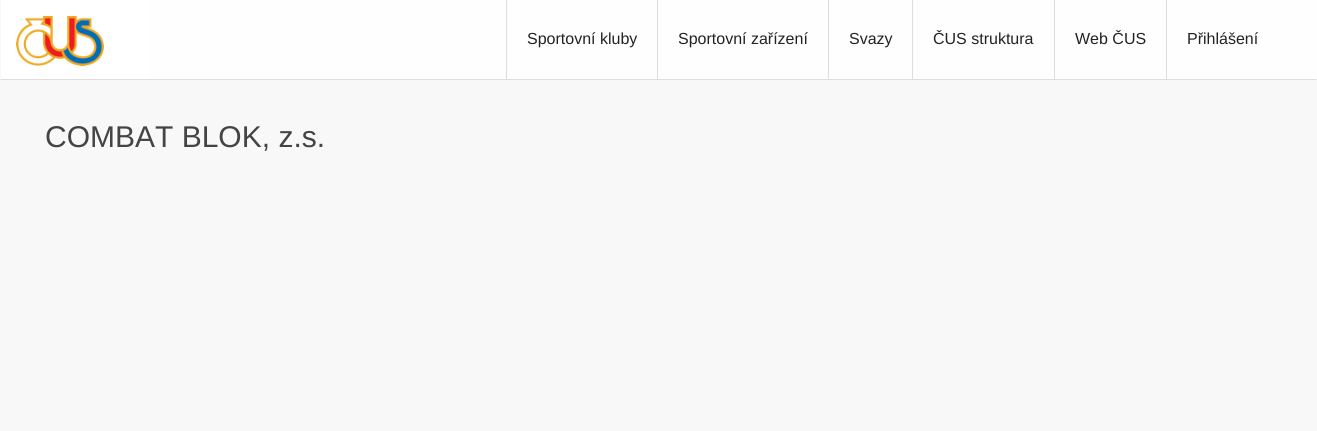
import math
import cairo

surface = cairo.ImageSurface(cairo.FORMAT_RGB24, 1317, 431)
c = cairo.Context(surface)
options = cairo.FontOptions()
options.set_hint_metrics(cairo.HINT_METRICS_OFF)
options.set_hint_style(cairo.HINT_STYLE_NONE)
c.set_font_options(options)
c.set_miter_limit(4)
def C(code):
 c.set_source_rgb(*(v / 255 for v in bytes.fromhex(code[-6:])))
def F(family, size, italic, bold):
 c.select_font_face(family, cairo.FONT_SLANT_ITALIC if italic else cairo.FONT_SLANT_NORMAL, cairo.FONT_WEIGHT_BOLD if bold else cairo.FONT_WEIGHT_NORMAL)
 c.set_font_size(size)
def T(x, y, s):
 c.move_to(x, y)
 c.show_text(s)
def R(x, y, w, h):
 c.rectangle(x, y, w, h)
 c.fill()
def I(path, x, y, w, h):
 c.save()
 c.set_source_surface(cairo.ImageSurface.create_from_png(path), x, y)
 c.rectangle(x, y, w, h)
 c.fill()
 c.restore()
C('f8f8f8')
c.paint()
I('1.png',1,0,1316,80)
C('dddddd')
c.new_path()
c.move_to(1317,80)
c.line_to(0,80)
c.line_to(1,79)
c.line_to(1316,79)
c.close_path()
c.fill()
I('2.png',16,16,88,50)
R(506,0,1,79)
F('Liberation Sans',16,0,0)
C('222222')
T(527,44,'Sportovní kluby')
C('dddddd')
R(657,0,1,79)
C('222222')
T(678,44,'Sportovní zařízení')
C('dddddd')
R(828,0,1,79)
C('222222')
T(849,44,'Svazy')
C('dddddd')
R(912,0,1,79)
C('222222')
T(933,44,'ČUS struktura')
C('dddddd')
R(1054,0,1,79)
C('222222')
T(1075,44,'Web ČUS')
C('dddddd')
R(1166,0,1,79)
C('222222')
T(1187,44,'Přihlášení')
F('Liberation Sans',30,0,0)
C('444444')
T(45,147,'COMBAT BLOK, z.s.')
surface.write_to_png('o.png')
